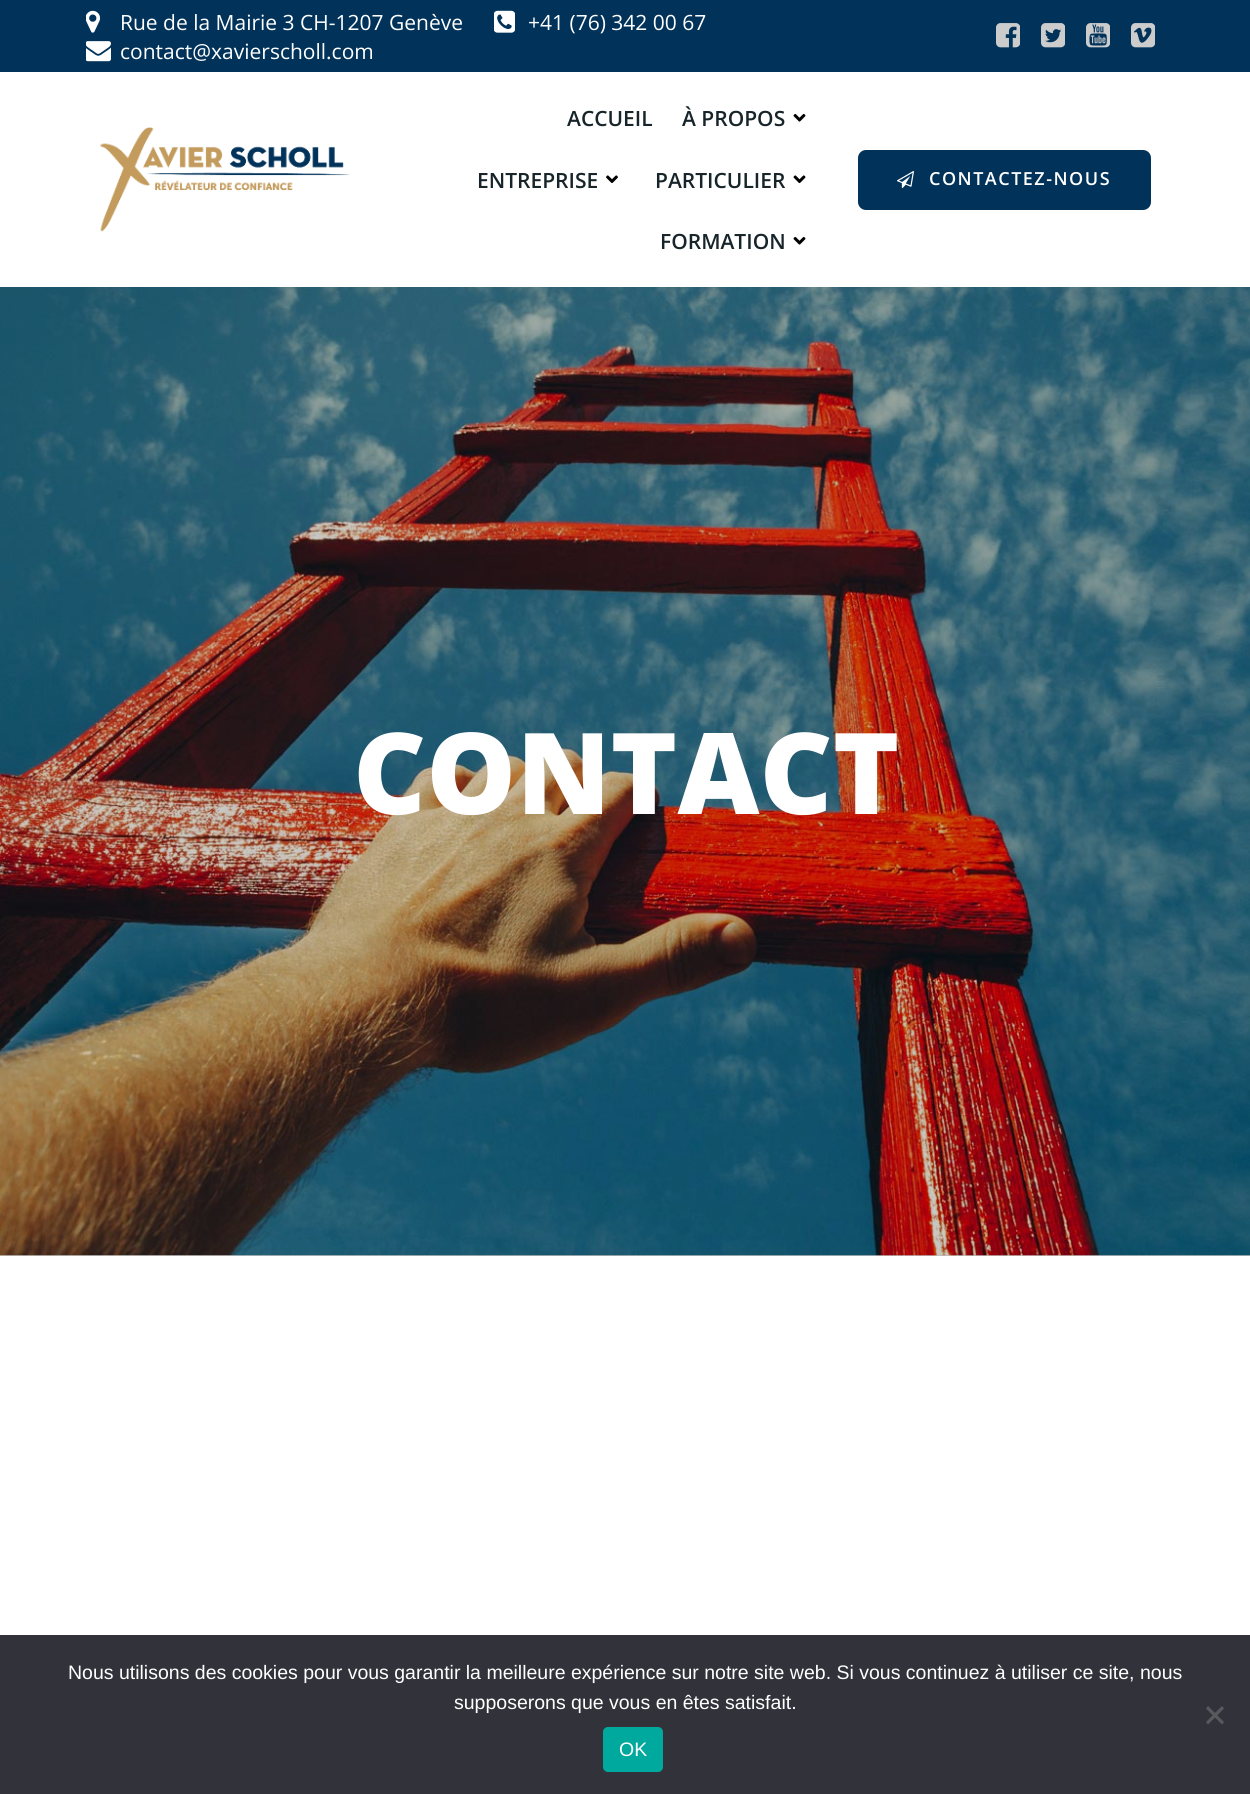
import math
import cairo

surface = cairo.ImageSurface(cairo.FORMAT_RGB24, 1250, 1794)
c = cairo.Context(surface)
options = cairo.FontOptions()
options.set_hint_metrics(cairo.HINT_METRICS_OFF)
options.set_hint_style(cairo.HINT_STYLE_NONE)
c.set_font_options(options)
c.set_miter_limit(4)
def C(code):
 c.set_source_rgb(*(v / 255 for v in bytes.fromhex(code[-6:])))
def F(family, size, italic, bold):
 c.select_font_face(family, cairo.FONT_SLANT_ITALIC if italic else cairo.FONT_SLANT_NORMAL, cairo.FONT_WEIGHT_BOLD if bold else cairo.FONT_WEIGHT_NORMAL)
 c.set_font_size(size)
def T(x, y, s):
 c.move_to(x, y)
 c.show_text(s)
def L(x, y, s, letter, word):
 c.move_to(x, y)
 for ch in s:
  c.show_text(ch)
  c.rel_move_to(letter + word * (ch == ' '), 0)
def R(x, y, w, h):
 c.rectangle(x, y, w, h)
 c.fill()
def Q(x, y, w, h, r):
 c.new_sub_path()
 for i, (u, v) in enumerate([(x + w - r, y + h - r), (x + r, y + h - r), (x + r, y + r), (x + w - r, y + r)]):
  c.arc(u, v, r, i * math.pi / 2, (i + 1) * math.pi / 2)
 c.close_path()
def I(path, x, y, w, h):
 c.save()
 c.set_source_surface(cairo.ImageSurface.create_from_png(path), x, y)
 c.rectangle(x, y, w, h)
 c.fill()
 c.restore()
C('ffffff')
c.paint()
C('c9c9c9')
R(0,1255,1250,1)
C('00325a')
R(0,0,1250,72)
I('1.png',86,10,15,23)
F('Open Sans',21,0,0)
C('ffffff')
T(120,30,'Rue de la Mairie 3 CH-1207 Genève')
I('2.png',494,10,21,23)
T(528,30,'+41 (76) 342 00 67')
I('3.png',86,41,25,21)
T(120,59,'contact@xavierscholl.com')
I('4.png',996,23,24,25)
I('5.png',1041,23,24,25)
I('6.png',1086,23,24,25)
I('7.png',1131,23,24,25)
I('8.png',100,127,250,105)
F('Open Sans SemiBold',21,0,0)
C('17252a')
T(567,126,'ACCUEIL')
T(682,126,'À PROPOS')
I('9.png',793,113,13,9)
T(477,188,'ENTREPRISE')
I('10.png',606,175,12,8)
T(655,188,'PARTICULIER')
I('11.png',793,175,13,9)
T(660,249,'FORMATION')
I('9.png',793,236,13,9)
C('00325a')
Q(859.5,151.5,290,57,6.5)
c.fill_preserve()
c.set_line_width(3)
c.stroke()
I('12.png',897,171,17,17)
F('Open Sans SemiBold',18,0,0)
C('ffffff')
L(929,185,'CONTACTEZ-NOUS',1.5,0)
I('14.png',0,1255,1250,1)
I('13.png',0,287,1250,969)
F('Open Sans ExtraBold',113,0,0)
T(353,814,'CONTACT')
C('32323a')
R(0,1635,1250,159)
F('Liberation Sans',19.5,0,0)
C('ffffff')
T(68,1679,'Nous utilisons des cookies pour vous garantir la meilleure expérience sur notre site web. Si vous continuez à utiliser ce site, nous')
T(454,1709,'supposerons que vous en êtes satisfait.')
C('59595d')
c.new_path()
c.move_to(1222,1706)
c.line_to(1224,1708.5)
c.line_to(1208,1724.5)
c.line_to(1206,1722)
c.close_path()
c.fill()
c.new_path()
c.move_to(1206,1708.5)
c.line_to(1208,1706)
c.line_to(1224,1722)
c.line_to(1222,1724.5)
c.close_path()
c.fill()
C('00a99d')
Q(603,1727,60,45,5)
c.fill()
C('ffffff')
T(619,1756,'OK')
surface.write_to_png('o.png')
